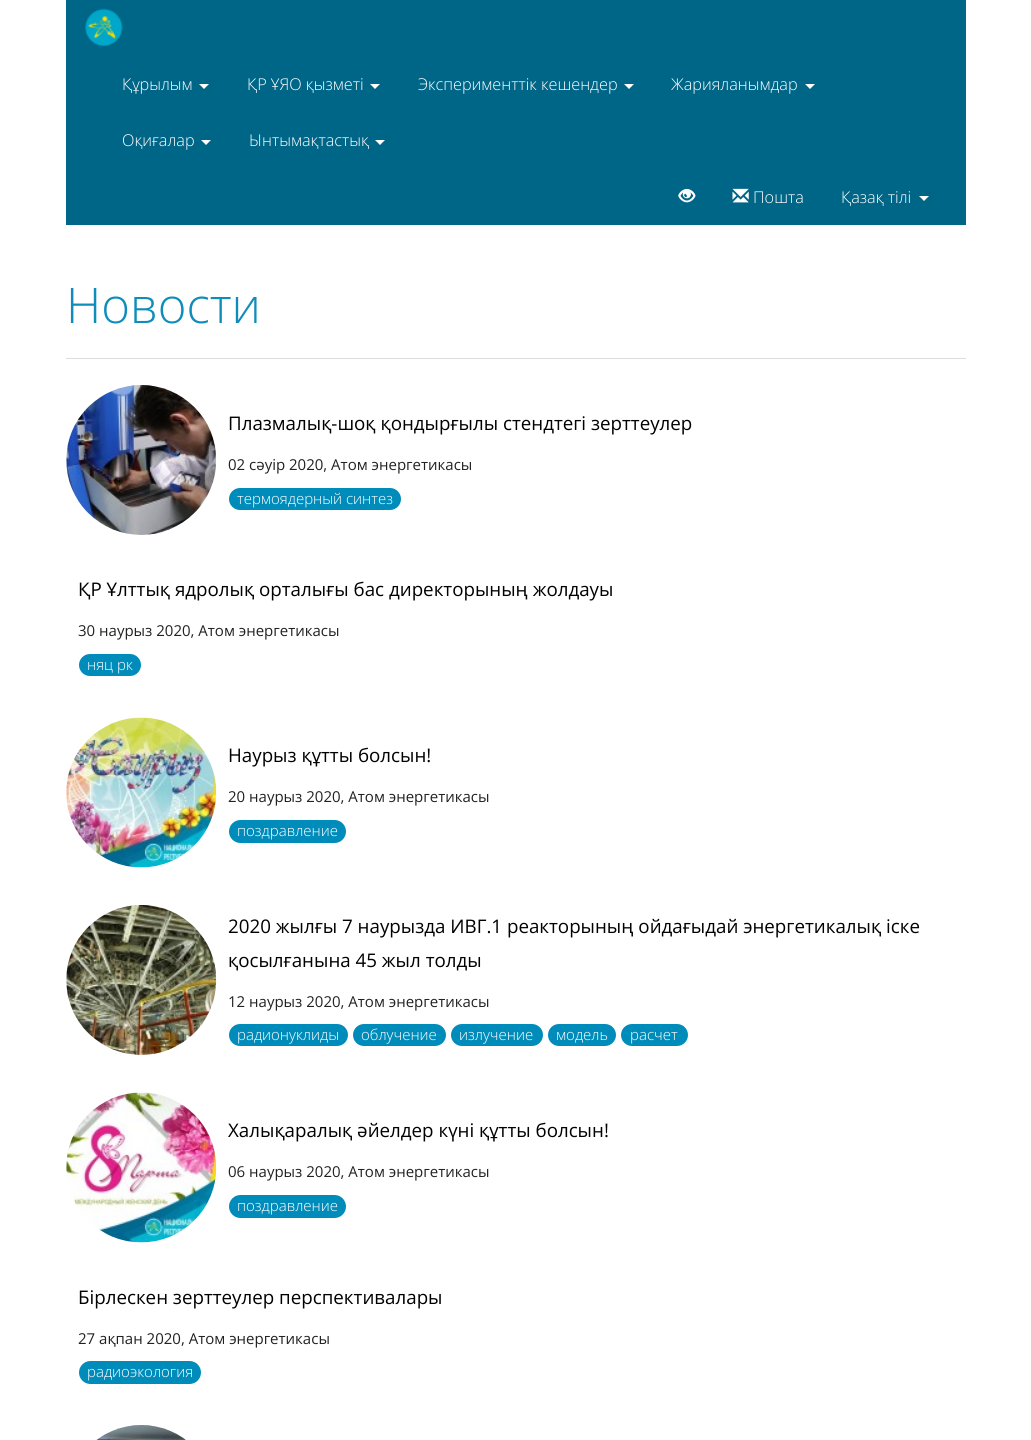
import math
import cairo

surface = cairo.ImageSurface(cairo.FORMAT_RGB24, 1031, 1440)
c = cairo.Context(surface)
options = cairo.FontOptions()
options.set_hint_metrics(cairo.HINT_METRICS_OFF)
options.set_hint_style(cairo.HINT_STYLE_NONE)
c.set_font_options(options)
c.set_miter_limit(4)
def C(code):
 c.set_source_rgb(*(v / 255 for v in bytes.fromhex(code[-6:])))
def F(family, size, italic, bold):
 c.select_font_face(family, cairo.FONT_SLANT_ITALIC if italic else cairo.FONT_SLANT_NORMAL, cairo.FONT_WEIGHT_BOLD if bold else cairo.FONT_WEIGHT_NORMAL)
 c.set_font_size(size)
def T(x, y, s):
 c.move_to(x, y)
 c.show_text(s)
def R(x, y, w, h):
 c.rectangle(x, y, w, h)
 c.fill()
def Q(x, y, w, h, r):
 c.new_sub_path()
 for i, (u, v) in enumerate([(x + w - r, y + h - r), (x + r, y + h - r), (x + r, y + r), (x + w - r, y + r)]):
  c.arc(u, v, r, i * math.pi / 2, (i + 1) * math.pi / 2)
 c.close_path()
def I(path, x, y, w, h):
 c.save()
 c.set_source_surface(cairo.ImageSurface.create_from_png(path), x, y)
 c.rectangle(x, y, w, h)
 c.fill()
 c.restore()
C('ffffff')
c.paint()
C('006687')
R(66,0,900,225)
I('1.png',85,8,38,39)
F('Open Sans Light',16.25,0,0)
C('ffffff')
T(122,90,'Құрылым')
c.new_path()
c.move_to(199,84)
c.line_to(209,84)
c.line_to(204,89)
c.close_path()
c.fill()
T(247,90,'ҚР ҰЯО қызметі')
c.new_path()
c.move_to(370,84)
c.line_to(380,84)
c.line_to(375,89)
c.close_path()
c.fill()
T(418,90,'Эксперименттік кешендер')
c.new_path()
c.move_to(624,84)
c.line_to(634,84)
c.line_to(629,89)
c.close_path()
c.fill()
T(671,90,'Жарияланымдар')
c.new_path()
c.move_to(805,84)
c.line_to(815,84)
c.line_to(810,89)
c.close_path()
c.fill()
T(122,146,'Оқиғалар')
c.new_path()
c.move_to(201,140)
c.line_to(211,140)
c.line_to(206,145)
c.close_path()
c.fill()
T(249,146,'Ынтымақтастық')
c.new_path()
c.move_to(375,140)
c.line_to(385,140)
c.line_to(380,145)
c.close_path()
c.fill()
I('2.png',678,188,18,15)
I('3.png',732,188,17,15)
T(753,203,'Пошта')
T(841,203,'Қазақ тілі')
c.new_path()
c.move_to(919,196)
c.line_to(929,196)
c.line_to(924,201)
c.close_path()
c.fill()
F('Open Sans Light',49,0,0)
C('0e8cba')
T(66,323,'Новости')
C('dddddd')
R(66,358,900,1)
I('4.png',66,385,151,150)
F('Open Sans',18.75,0,0)
C('000000')
T(228,430,'Плазмалық-шоқ қондырғылы стендтегі зерттеулер')
F('Open Sans',15,0,0)
C('222222')
T(228,470,'02 сәуір 2020, Атом энергетикасы')
C('008cba')
Q(229,488,172,22,11)
c.fill()
F('Open Sans Light',15,0,0)
C('ffffff')
T(237,504,'термоядерный синтез')
F('Open Sans',18.75,0,0)
C('000000')
T(78,596,'ҚР Ұлттық ядролық орталығы бас директорының жолдауы')
F('Open Sans',15,0,0)
C('222222')
T(78,636,'30 наурыз 2020, Атом энергетикасы')
C('008cba')
Q(79,654,62,22,11)
c.fill()
F('Open Sans Light',15,0,0)
C('ffffff')
T(87,670,'няц рк')
I('5.png',66,717,151,151)
F('Open Sans',18.75,0,0)
C('000000')
T(228,762,'Наурыз құтты болсын!')
F('Open Sans',15,0,0)
C('222222')
T(228,802,'20 наурыз 2020, Атом энергетикасы')
C('008cba')
Q(229,820,117,23,11.5)
c.fill()
F('Open Sans Light',15,0,0)
C('ffffff')
T(237,836,'поздравление')
I('6.png',66,905,151,150)
F('Open Sans',18.75,0,0)
C('000000')
T(228,933,'2020 жылғы 7 наурызда ИВГ.1 реакторының ойдағыдай энергетикалық іске')
T(228,967,'қосылғанына 45 жыл толды')
F('Open Sans',15,0,0)
C('222222')
T(228,1007,'12 наурыз 2020, Атом энергетикасы')
C('008cba')
Q(229,1024,119,22,11)
c.fill()
F('Open Sans Light',15,0,0)
C('ffffff')
T(237,1040,'радионуклиды')
C('008cba')
Q(353,1024,93,22,11)
c.fill()
C('ffffff')
T(361,1040,'облучение')
C('008cba')
Q(451,1024,92,22,11)
c.fill()
C('ffffff')
T(459,1040,'излучение')
C('008cba')
Q(548,1024,68,22,11)
c.fill()
C('ffffff')
T(556,1040,'модель')
C('008cba')
Q(621,1024,67,22,11)
c.fill()
C('ffffff')
T(630,1040,'расчет')
I('7.png',66,1092,151,151)
F('Open Sans',18.75,0,0)
C('000000')
T(228,1137,'Халықаралық әйелдер күні құтты болсын!')
F('Open Sans',15,0,0)
C('222222')
T(228,1177,'06 наурыз 2020, Атом энергетикасы')
C('008cba')
Q(229,1195,117,23,11.5)
c.fill()
F('Open Sans Light',15,0,0)
C('ffffff')
T(237,1211,'поздравление')
F('Open Sans',18.75,0,0)
C('000000')
T(78,1304,'Бірлескен зерттеулер перспективалары')
F('Open Sans',15,0,0)
C('222222')
T(78,1344,'27 ақпан 2020, Атом энергетикасы')
C('008cba')
Q(79,1361,122,23,11.5)
c.fill()
F('Open Sans Light',15,0,0)
C('ffffff')
T(87,1377,'радиоэкология')
I('8.png',96,1425,90,15)
surface.write_to_png('o.png')
